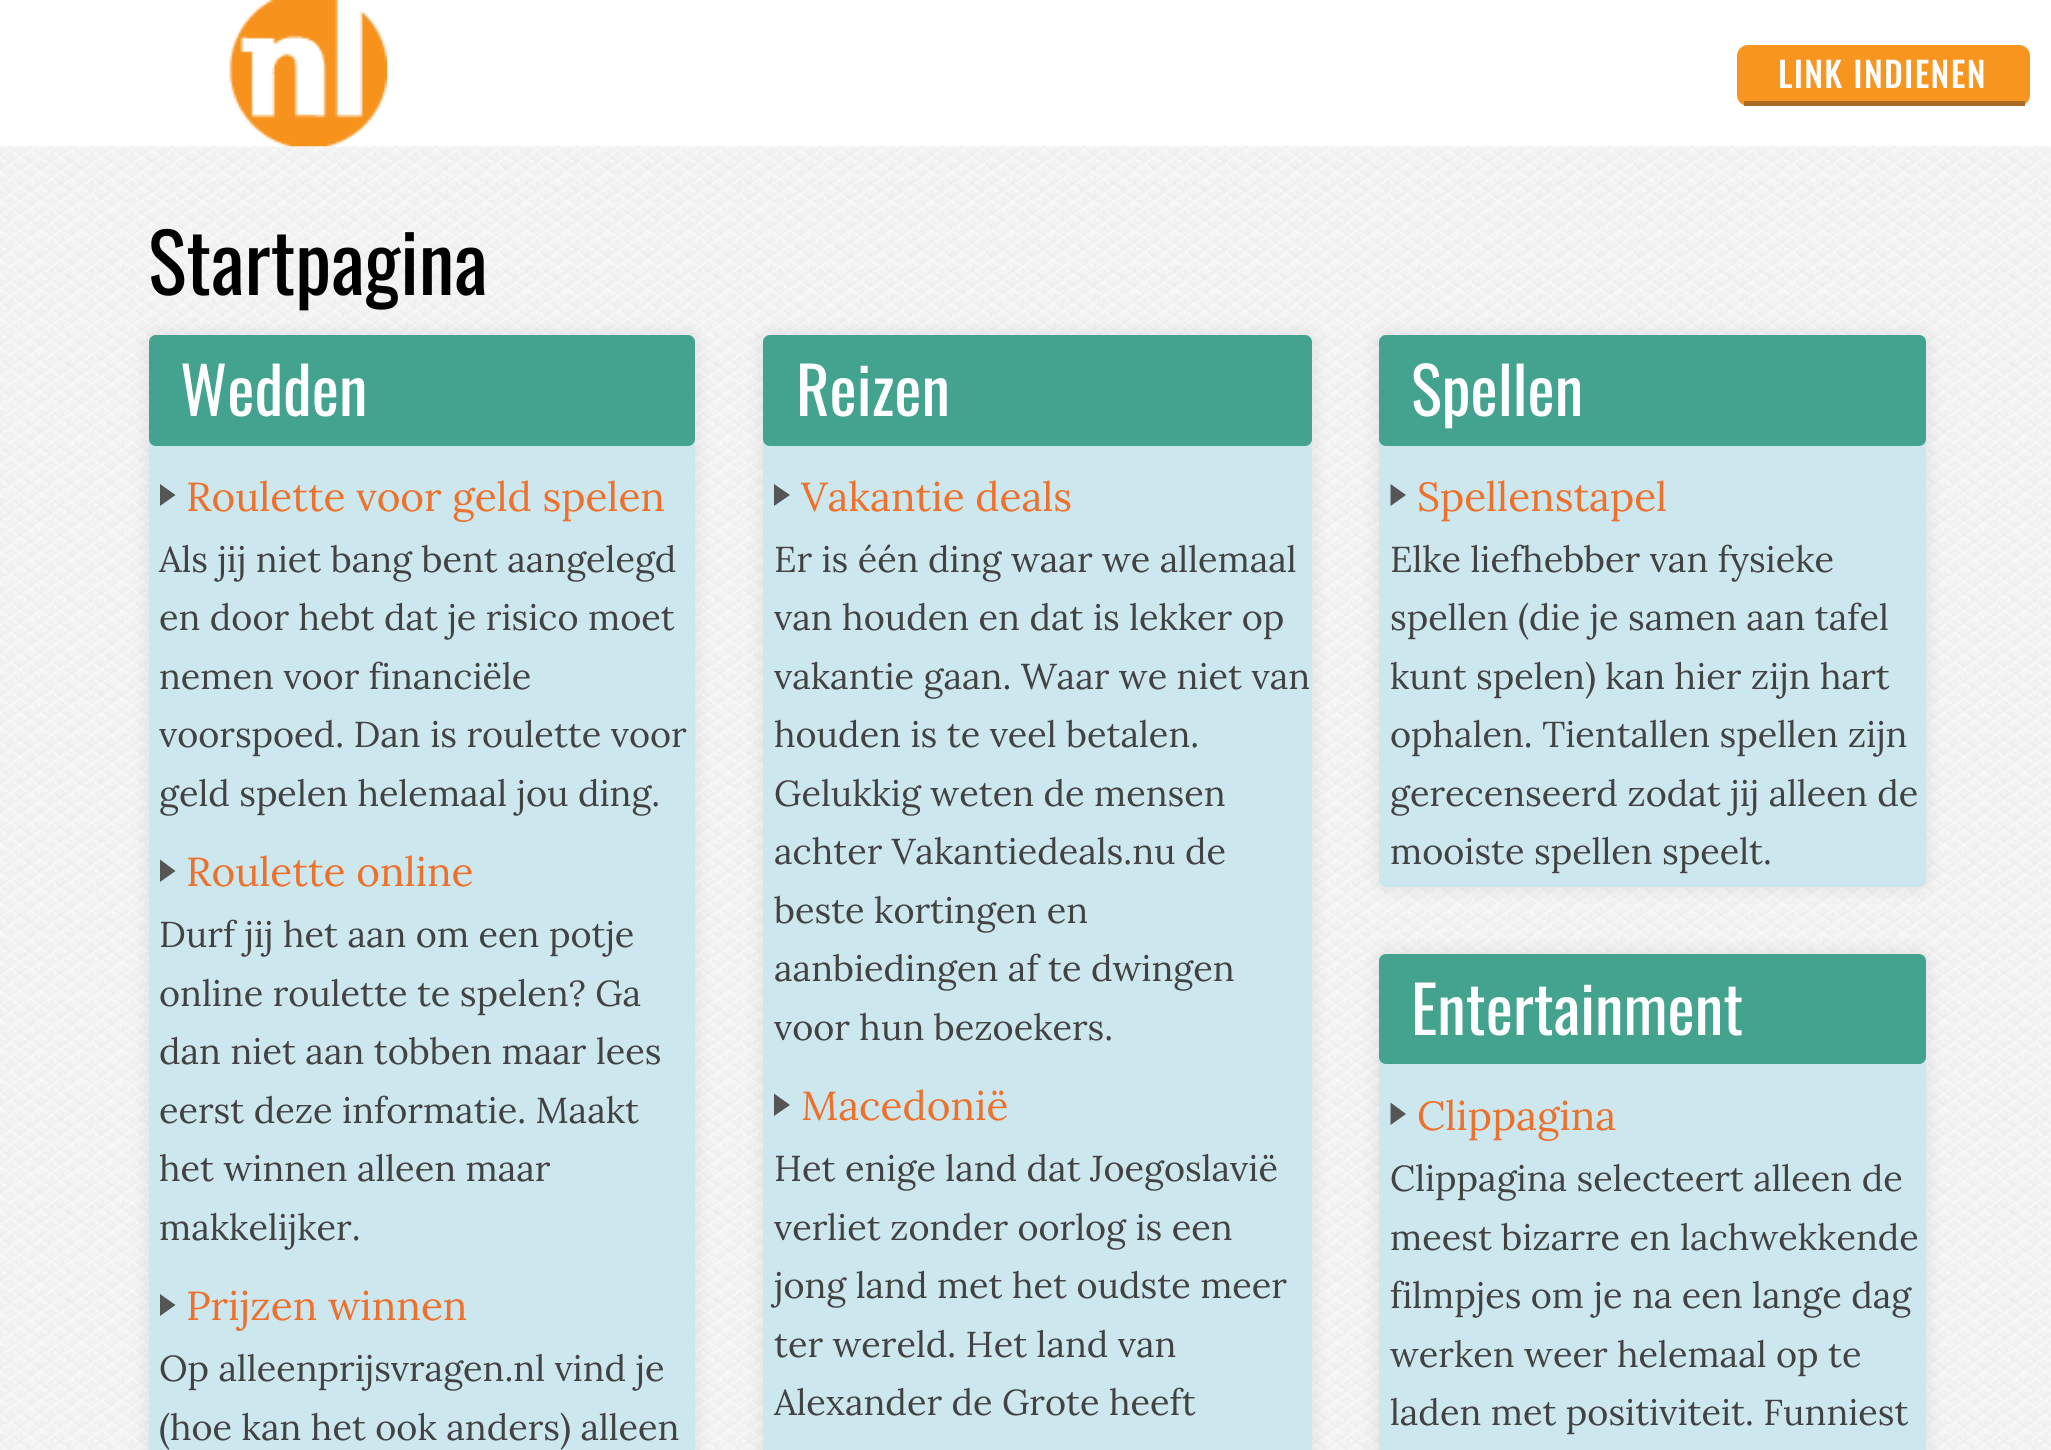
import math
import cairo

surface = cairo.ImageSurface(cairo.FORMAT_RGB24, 2051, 1450)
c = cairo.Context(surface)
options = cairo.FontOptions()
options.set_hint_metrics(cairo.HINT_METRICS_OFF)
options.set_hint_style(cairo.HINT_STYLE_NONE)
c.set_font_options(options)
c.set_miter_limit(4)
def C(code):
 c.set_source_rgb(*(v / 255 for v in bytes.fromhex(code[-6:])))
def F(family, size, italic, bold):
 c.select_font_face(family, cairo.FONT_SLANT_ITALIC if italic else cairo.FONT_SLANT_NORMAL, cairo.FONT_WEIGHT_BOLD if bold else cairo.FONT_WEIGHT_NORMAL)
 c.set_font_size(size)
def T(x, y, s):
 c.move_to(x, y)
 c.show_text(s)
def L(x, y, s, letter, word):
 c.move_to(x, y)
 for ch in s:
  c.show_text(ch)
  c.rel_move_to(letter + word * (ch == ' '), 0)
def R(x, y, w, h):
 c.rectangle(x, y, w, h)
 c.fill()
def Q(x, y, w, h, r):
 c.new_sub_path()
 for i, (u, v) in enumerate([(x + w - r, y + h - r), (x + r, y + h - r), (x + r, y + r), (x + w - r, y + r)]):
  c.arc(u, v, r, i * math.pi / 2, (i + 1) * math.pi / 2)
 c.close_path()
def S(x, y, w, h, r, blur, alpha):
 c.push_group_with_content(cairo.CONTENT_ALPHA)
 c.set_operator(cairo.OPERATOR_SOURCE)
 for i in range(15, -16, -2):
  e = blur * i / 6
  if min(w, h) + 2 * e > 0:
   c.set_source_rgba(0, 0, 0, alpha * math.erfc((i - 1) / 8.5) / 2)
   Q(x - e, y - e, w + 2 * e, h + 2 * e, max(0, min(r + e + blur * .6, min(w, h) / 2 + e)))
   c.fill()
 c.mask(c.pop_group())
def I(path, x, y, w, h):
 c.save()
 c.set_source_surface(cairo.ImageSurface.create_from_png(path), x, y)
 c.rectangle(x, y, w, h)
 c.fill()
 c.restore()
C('ffffff')
c.paint()
I('2.png',0,146,2051,1304)
I('1.png',229,0,158,147)
C('f7951e')
Q(1737,45,293,61,11)
c.fill()
C('a76b23')
R(1744,101,281,5)
F('Oswald',33.75,0,1)
C('ffffff')
L(1778,88,'LINK INDIENEN',2.25,0)
F('Oswald',81,0,0)
C('000000')
T(148,295,'Startpagina')
C('000000')
S(149,335,546,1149,7,9,.1)
C('cde7ef')
Q(149,335,546,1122,7)
c.fill()
C('43a38f')
Q(149,335,546,111,7)
c.fill()
F('Oswald',64.75,0,0)
C('ffffff')
T(180,416,'Wedden')
C('555555')
c.new_path()
c.move_to(160,506)
c.line_to(160,484)
c.line_to(175.5,495)
c.close_path()
c.fill()
F('Lora',40.5,0,0)
C('ed702b')
T(186,511,'Roulette voor geld spelen')
F('Lora',36,0,0)
C('424242')
T(159,572,'Als jij niet bang bent aangelegd')
T(159,630,'en door hebt dat je risico moet')
T(159,689,'nemen voor financiële')
T(159,747,'voorspoed. Dan is roulette voor')
T(159,806,'geld spelen helemaal jou ding.')
C('555555')
c.new_path()
c.move_to(160,882)
c.line_to(160,859.5)
c.line_to(175.5,871)
c.close_path()
c.fill()
F('Lora',40.5,0,0)
C('ed702b')
T(186,886,'Roulette online')
F('Lora',36,0,0)
C('424242')
T(159,947,'Durf jij het aan om een potje')
T(159,1006,'online roulette te spelen? Ga')
T(159,1064,'dan niet aan tobben maar lees')
T(159,1123,'eerst deze informatie. Maakt')
T(159,1181,'het winnen alleen maar')
T(159,1240,'makkelijker.')
C('555555')
c.new_path()
c.move_to(160,1316)
c.line_to(160,1294)
c.line_to(175.5,1305)
c.close_path()
c.fill()
F('Lora',40.5,0,0)
C('ed702b')
T(186,1320,'Prijzen winnen')
F('Lora',36,0,0)
C('424242')
T(159,1381,'Op alleenprijsvragen.nl vind je')
T(159,1440,'(hoe kan het ook anders) alleen')
C('000000')
S(763,335,549,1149,7,9,.1)
C('cde7ef')
Q(763,335,549,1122,7)
c.fill()
C('43a38f')
Q(763,335,549,111,7)
c.fill()
F('Oswald',64.75,0,0)
C('ffffff')
T(796,416,'Reizen')
C('555555')
c.new_path()
c.move_to(774,506)
c.line_to(774,484)
c.line_to(790,495)
c.close_path()
c.fill()
F('Lora',40.5,0,0)
C('ed702b')
T(801,511,'Vakantie deals')
F('Lora',36,0,0)
C('424242')
T(774,572,'Er is één ding waar we allemaal')
T(774,630,'van houden en dat is lekker op')
T(774,689,'vakantie gaan. Waar we niet van')
T(774,747,'houden is te veel betalen.')
T(774,806,'Gelukkig weten de mensen')
T(774,864,'achter Vakantiedeals.nu de')
T(774,923,'beste kortingen en')
T(774,981,'aanbiedingen af te dwingen')
T(774,1040,'voor hun bezoekers.')
C('555555')
c.new_path()
c.move_to(774,1116)
c.line_to(774,1093.5)
c.line_to(790,1105)
c.close_path()
c.fill()
F('Lora',40.5,0,0)
C('ed702b')
T(801,1120,'Macedonië')
F('Lora',36,0,0)
C('424242')
T(774,1181,'Het enige land dat Joegoslavië')
T(774,1240,'verliet zonder oorlog is een')
T(774,1298,'jong land met het oudste meer')
T(774,1357,'ter wereld. Het land van')
T(774,1415,'Alexander de Grote heeft')
C('000000')
S(1379,335,547,552,7,9,.1)
C('cde7ef')
Q(1379,335,547,552,7)
c.fill()
C('43a38f')
Q(1379,335,547,111,7)
c.fill()
F('Oswald',64.75,0,0)
C('ffffff')
T(1411,416,'Spellen')
C('555555')
c.new_path()
c.move_to(1390.5,506)
c.line_to(1390.5,484)
c.line_to(1406,495)
c.close_path()
c.fill()
F('Lora',40.5,0,0)
C('ed702b')
T(1417,511,'Spellenstapel')
F('Lora',36,0,0)
C('424242')
T(1390,572,'Elke liefhebber van fysieke')
T(1390,630,'spellen (die je samen aan tafel')
T(1390,689,'kunt spelen) kan hier zijn hart')
T(1390,747,'ophalen. Tientallen spellen zijn')
T(1390,806,'gerecenseerd zodat jij alleen de')
T(1390,864,'mooiste spellen speelt.')
C('000000')
S(1379,954,547,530,7,9,.1)
C('cde7ef')
Q(1379,954,547,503,7)
c.fill()
C('43a38f')
Q(1379,954,547,110,7)
c.fill()
F('Oswald',64.75,0,0)
C('ffffff')
T(1411,1035,'Entertainment')
C('555555')
c.new_path()
c.move_to(1390.5,1125)
c.line_to(1390.5,1102.5)
c.line_to(1406,1114)
c.close_path()
c.fill()
F('Lora',40.5,0,0)
C('ed702b')
T(1417,1130,'Clippagina')
F('Lora',36,0,0)
C('424242')
T(1390,1191,'Clippagina selecteert alleen de')
T(1390,1250,'meest bizarre en lachwekkende')
T(1390,1308,'filmpjes om je na een lange dag')
T(1390,1367,'werken weer helemaal op te')
T(1390,1425,'laden met positiviteit. Funniest')
surface.write_to_png('o.png')
